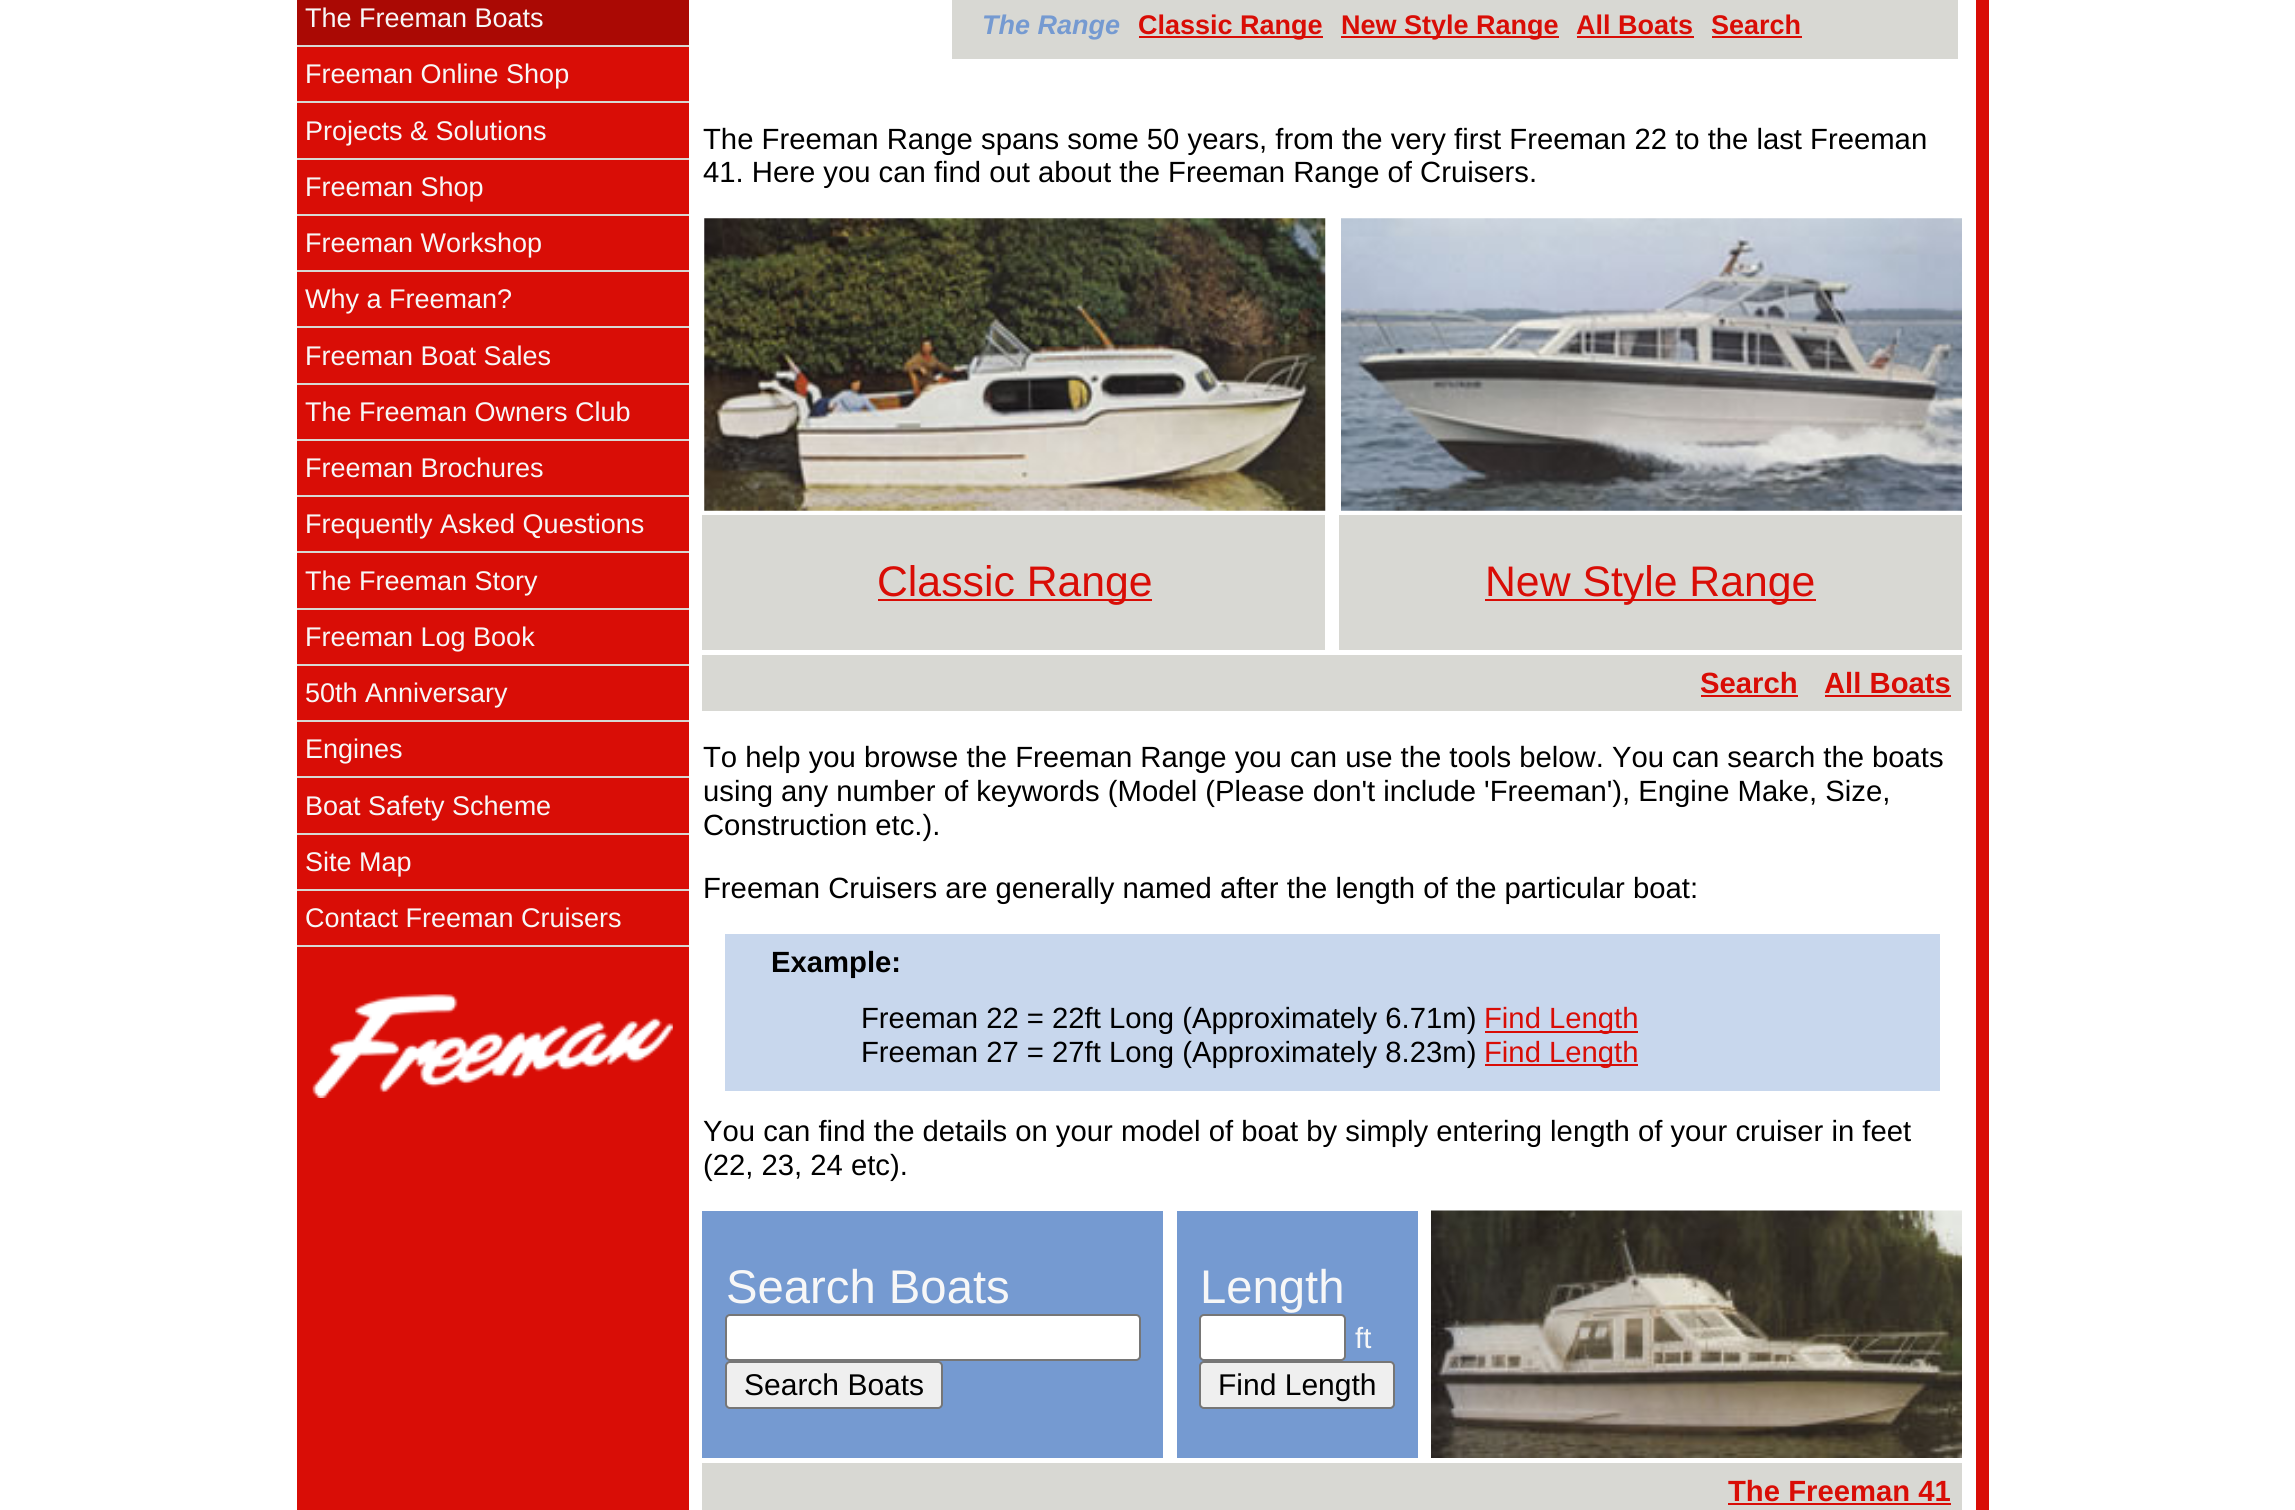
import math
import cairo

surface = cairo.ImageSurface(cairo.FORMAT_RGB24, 2295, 1510)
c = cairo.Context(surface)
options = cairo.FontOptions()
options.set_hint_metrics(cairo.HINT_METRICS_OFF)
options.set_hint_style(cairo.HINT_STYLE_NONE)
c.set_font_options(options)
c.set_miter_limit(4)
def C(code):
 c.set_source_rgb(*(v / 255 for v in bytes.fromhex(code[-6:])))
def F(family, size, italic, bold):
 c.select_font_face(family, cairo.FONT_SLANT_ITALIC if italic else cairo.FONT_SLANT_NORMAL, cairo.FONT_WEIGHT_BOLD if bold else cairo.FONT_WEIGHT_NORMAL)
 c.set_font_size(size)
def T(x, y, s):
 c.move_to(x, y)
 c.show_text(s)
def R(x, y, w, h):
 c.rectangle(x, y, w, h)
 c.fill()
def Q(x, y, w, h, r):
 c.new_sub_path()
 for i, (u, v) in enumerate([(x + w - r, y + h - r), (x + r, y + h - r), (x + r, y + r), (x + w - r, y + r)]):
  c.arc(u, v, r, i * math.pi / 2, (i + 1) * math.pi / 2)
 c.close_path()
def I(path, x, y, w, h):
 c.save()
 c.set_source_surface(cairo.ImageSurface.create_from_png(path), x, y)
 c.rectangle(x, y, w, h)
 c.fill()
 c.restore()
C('ffffff')
c.paint()
C('d90d06')
R(297,47,392,1463)
C('d8d8d3')
R(297,45,392,2)
C('aa0904')
R(297,0,392,45)
F('Liberation Sans',27,0,0)
C('f7f7f7')
T(305,27,'The Freeman Boats')
C('d8d8d3')
R(297,101,392,2)
C('f7f7f7')
T(305,83,'Freeman Online Shop')
C('d8d8d3')
R(297,158,392,2)
C('f7f7f7')
T(305,140,'Projects & Solutions')
C('d8d8d3')
R(297,214,392,2)
C('f7f7f7')
T(305,196,'Freeman Shop')
C('d8d8d3')
R(297,270,392,2)
C('f7f7f7')
T(305,252,'Freeman Workshop')
C('d8d8d3')
R(297,326,392,2)
C('f7f7f7')
T(305,308,'Why a Freeman?')
C('d8d8d3')
R(297,383,392,2)
C('f7f7f7')
T(305,365,'Freeman Boat Sales')
C('d8d8d3')
R(297,439,392,2)
C('f7f7f7')
T(305,421,'The Freeman Owners Club')
C('d8d8d3')
R(297,495,392,2)
C('f7f7f7')
T(305,477,'Freeman Brochures')
C('d8d8d3')
R(297,551,392,2)
C('f7f7f7')
T(305,533,'Frequently Asked Questions')
C('d8d8d3')
R(297,608,392,2)
C('f7f7f7')
T(305,590,'The Freeman Story')
C('d8d8d3')
R(297,664,392,2)
C('f7f7f7')
T(305,646,'Freeman Log Book')
C('d8d8d3')
R(297,720,392,2)
C('f7f7f7')
T(305,702,'50th Anniversary')
C('d8d8d3')
R(297,776,392,2)
C('f7f7f7')
T(305,758,'Engines')
C('d8d8d3')
R(297,833,392,2)
C('f7f7f7')
T(305,815,'Boat Safety Scheme')
C('d8d8d3')
R(297,889,392,2)
C('f7f7f7')
T(305,871,'Site Map')
C('d8d8d3')
R(297,945,392,2)
C('f7f7f7')
T(305,927,'Contact Freeman Cruisers')
I('1.png',312,994,361,104)
C('d8d8d3')
R(952,0,1006,59)
F('Liberation Sans',27,1,1)
C('759ad1')
T(982,34,'The Range')
C('d90d06')
R(1139,36,184,2)
F('Liberation Sans',27,0,1)
T(1138,34,'Classic Range')
R(1341,36,218,2)
T(1341,34,'New Style Range')
T(1576,34,'All Boats')
R(1577,36,117,2)
T(1711,34,'Search')
R(1712,36,90,2)
F('Liberation Sans',29.25,0,0)
C('000000')
T(703,149,'The Freeman Range spans some 50 years, from the very first Freeman 22 to the last Freeman')
T(703,182,'41. Here you can find out about the Freeman Range of Cruisers.')
I('2.png',704,218,622,293)
I('3.png',1341,218,621,293)
C('d8d8d3')
R(702,515,623,135)
C('d90d06')
R(878,599,274,2)
F('Liberation Sans',42.75,0,0)
T(877,596,'Classic Range')
C('d8d8d3')
R(1339,515,623,135)
C('d90d06')
R(1485,599,331,2)
T(1485,596,'New Style Range')
C('d8d8d3')
R(702,655,1260,56)
F('Liberation Sans',29.25,0,1)
C('d90d06')
T(1700,693,'Search')
R(1701,695,97,2)
T(1824,693,'All Boats')
R(1825,695,126,2)
F('Liberation Sans',29.25,0,0)
C('000000')
T(703,767,'To help you browse the Freeman Range you can use the tools below. You can search the boats')
T(703,801,'using any number of keywords (Model (Please don\'t include \'Freeman\'), Engine Make, Size,')
T(703,835,'Construction etc.).')
T(703,898,'Freeman Cruisers are generally named after the length of the particular boat:')
C('c8d7ed')
R(725,934,1215,157)
F('Liberation Sans',29.25,0,1)
C('000000')
T(771,972,'Example:')
F('Liberation Sans',29.25,0,0)
T(861,1028,'Freeman 22 = 22ft Long (Approximately 6.71m)')
C('d90d06')
R(1485,1031,153,2)
T(1484,1028,'Find Length')
C('000000')
T(861,1062,'Freeman 27 = 27ft Long (Approximately 8.23m)')
C('d90d06')
R(1485,1064,153,2)
T(1484,1062,'Find Length')
C('000000')
T(703,1141,'You can find the details on your model of boat by simply entering length of your cruiser in feet')
T(703,1175,'(22, 23, 24 etc).')
C('759ad1')
R(702,1211,461,247)
F('Liberation Sans',47.25,0,0)
C('f7f7f7')
T(726,1303,'Search Boats')
C('ffffff')
Q(726,1315,414,45,4)
c.fill_preserve()
C('767676')
c.stroke()
C('efefef')
Q(726,1362,216,46,4)
c.fill_preserve()
C('767676')
c.stroke()
F('Liberation Sans',30,0,0)
C('000000')
T(744,1395,'Search Boats')
C('759ad1')
R(1177,1211,241,247)
F('Liberation Sans',47.25,0,0)
C('f7f7f7')
T(1200,1303,'Length')
C('ffffff')
Q(1200,1315,145,45,4)
c.fill_preserve()
C('767676')
c.stroke()
F('Liberation Sans',29.25,0,0)
C('f7f7f7')
T(1355,1348,'ft')
C('efefef')
Q(1200,1362,194,46,4)
c.fill_preserve()
C('767676')
c.stroke()
F('Liberation Sans',30,0,0)
C('000000')
T(1218,1395,'Find Length')
I('4.png',1431,1210,531,248)
C('d8d8d3')
R(702,1463,1260,47)
F('Liberation Sans',29.25,0,1)
C('d90d06')
T(1728,1501,'The Freeman 41')
R(1728,1503,223,2)
R(1976,0,13,1510)
surface.write_to_png('o.png')
